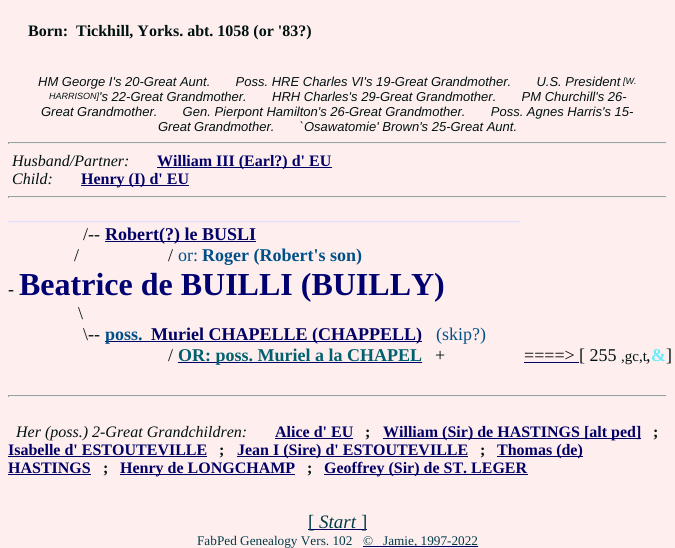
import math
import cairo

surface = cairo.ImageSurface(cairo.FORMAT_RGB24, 675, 548)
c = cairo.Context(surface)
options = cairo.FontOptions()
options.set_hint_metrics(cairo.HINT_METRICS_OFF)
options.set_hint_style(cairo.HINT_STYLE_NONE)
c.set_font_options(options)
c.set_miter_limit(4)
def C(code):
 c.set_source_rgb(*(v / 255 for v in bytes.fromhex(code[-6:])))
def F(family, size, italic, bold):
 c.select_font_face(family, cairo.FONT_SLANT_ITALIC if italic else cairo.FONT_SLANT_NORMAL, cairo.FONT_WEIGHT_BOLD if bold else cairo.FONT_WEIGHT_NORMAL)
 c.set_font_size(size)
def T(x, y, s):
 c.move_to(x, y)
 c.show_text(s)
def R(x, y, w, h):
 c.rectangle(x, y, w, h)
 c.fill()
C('ffeeee')
c.paint()
F('Liberation Serif',16,0,1)
C('001111')
T(28,36,'Born:')
T(76,36,'Tickhill, Yorks. abt. 1058 (or \'83?)')
F('Liberation Sans',13,1,0)
T(38,86,'HM George I\'s 20-Great Aunt.       Poss. HRE Charles VI\'s 19-Great Grandmother.       U.S. President')
F('Liberation Sans',9,1,0)
T(623,84,'[W.')
T(49,99,'HARRISON]')
F('Liberation Sans',13,1,0)
T(99,101,'\'s 22-Great Grandmother.       HRH Charles\'s 29-Great Grandmother.       PM Churchill\'s 26-')
T(41,116,'Great Grandmother.       Gen. Pierpont Hamilton\'s 26-Great Grandmother.       Poss. Agnes Harris\'s 15-')
T(158,131,'Great Grandmother.       `Osawatomie\' Brown\'s 25-Great Aunt.')
C('9f9f9f')
R(8,142,659,1)
C('eeeeee')
R(666,142,1,2)
R(8,143,659,1)
C('9f9f9f')
R(8,142,1,2)
F('Liberation Serif',16,1,0)
C('001111')
T(12,166,'Husband/Partner:')
C('000066')
R(157,167,175,1)
F('Liberation Serif',16,0,1)
T(157,166,'William III (Earl?) d\' EU')
F('Liberation Serif',16,1,0)
C('001111')
T(12,184,'Child:')
C('000066')
R(81,185,108,1)
F('Liberation Serif',16,0,1)
T(81,184,'Henry (I) d\' EU')
C('9f9f9f')
R(8,196,659,1)
C('eeeeee')
R(666,196,1,2)
R(8,197,659,1)
C('9f9f9f')
R(8,196,1,2)
C('ddddff')
T(8,220,'________________________________________________________________')
F('Liberation Serif',18,0,0)
C('001111')
T(83,240,'/--')
C('000066')
R(105,241,151,1)
F('Liberation Serif',18,0,1)
T(105,240,'Robert(?) le BUSLI')
F('Liberation Serif',18,0,0)
C('001111')
T(74,261,'/')
T(168,261,'/')
C('005088')
T(178,261,'or:')
F('Liberation Serif',18,0,1)
T(202,261,'Roger (Robert\'s son)')
F('Liberation Serif',18,0,0)
C('001111')
T(8,295,'-')
F('Liberation Serif',32,0,1)
C('000070')
T(19,295,'Beatrice de BUILLI (BUILLY)')
F('Liberation Serif',18,0,0)
C('001111')
T(78,319,'\\')
T(83,340,'\\--')
C('000066')
R(105,341,317,1)
F('Liberation Serif',18,0,1)
C('005088')
T(105,340,'poss.')
C('000066')
T(151,340,'Muriel CHAPELLE (CHAPPELL)')
F('Liberation Serif',18,0,0)
C('005088')
T(436,340,'(skip?)')
C('001111')
T(168,361,'/')
C('000066')
R(178,362,244,1)
F('Liberation Serif',18,0,1)
C('006070')
T(178,361,'OR: poss. Muriel a la CHAPEL')
F('Liberation Serif',18,0,0)
C('001111')
T(435,361,'+')
C('000000')
T(524,361,'====>')
C('000066')
R(524,362,55,1)
C('001111')
T(579,361,'[ 255')
F('Liberation Serif',15,0,0)
T(621,361,',gc,t')
F('Liberation Serif',18,0,0)
T(646,361,',')
F('Liberation Serif',18,0,1)
C('68ecfc')
T(651,361,'&')
F('Liberation Serif',18,0,0)
C('001111')
T(666,361,']')
C('9f9f9f')
R(8,395,659,1)
C('eeeeee')
R(666,395,1,2)
R(8,396,659,1)
C('9f9f9f')
R(8,395,1,2)
F('Liberation Serif',16,1,0)
C('001111')
T(16,437,'Her (poss.) 2-Great Grandchildren:')
F('Liberation Serif',16,0,1)
C('000066')
T(275,437,'Alice d\' EU')
R(275,438,78,1)
C('001111')
T(365,437,';')
C('000066')
R(383,438,258,1)
T(383,437,'William (Sir) de HASTINGS [alt ped]')
C('001111')
T(653,437,';')
C('000066')
T(8,455,'Isabelle d\' ESTOUTEVILLE')
R(8,456,199,1)
C('001111')
T(219,455,';')
C('000066')
R(237,456,231,1)
T(237,455,'Jean I (Sire) d\' ESTOUTEVILLE')
C('001111')
T(480,455,';')
C('000066')
R(497,456,86,1)
T(497,455,'Thomas (de)')
T(8,473,'HASTINGS')
R(8,474,83,1)
C('001111')
T(103,473,';')
C('000066')
R(120,474,175,1)
T(120,473,'Henry de LONGCHAMP')
C('001111')
T(307,473,';')
C('000066')
R(324,474,204,1)
T(324,473,'Geoffrey (Sir) de ST. LEGER')
R(308,529,59,1)
F('Liberation Serif',19,0,0)
C('003c48')
T(308,528,'[')
F('Liberation Serif',19,1,0)
T(319,528,'Start')
F('Liberation Serif',19,0,0)
T(361,528,']')
F('Liberation Serif',13.25,0,0)
T(197,545,'FabPed Genealogy Vers. 102')
C('000066')
R(363,546,115,1)
C('003c48')
T(363,545,'©   Jamie, 1997-2022')
surface.write_to_png('o.png')
